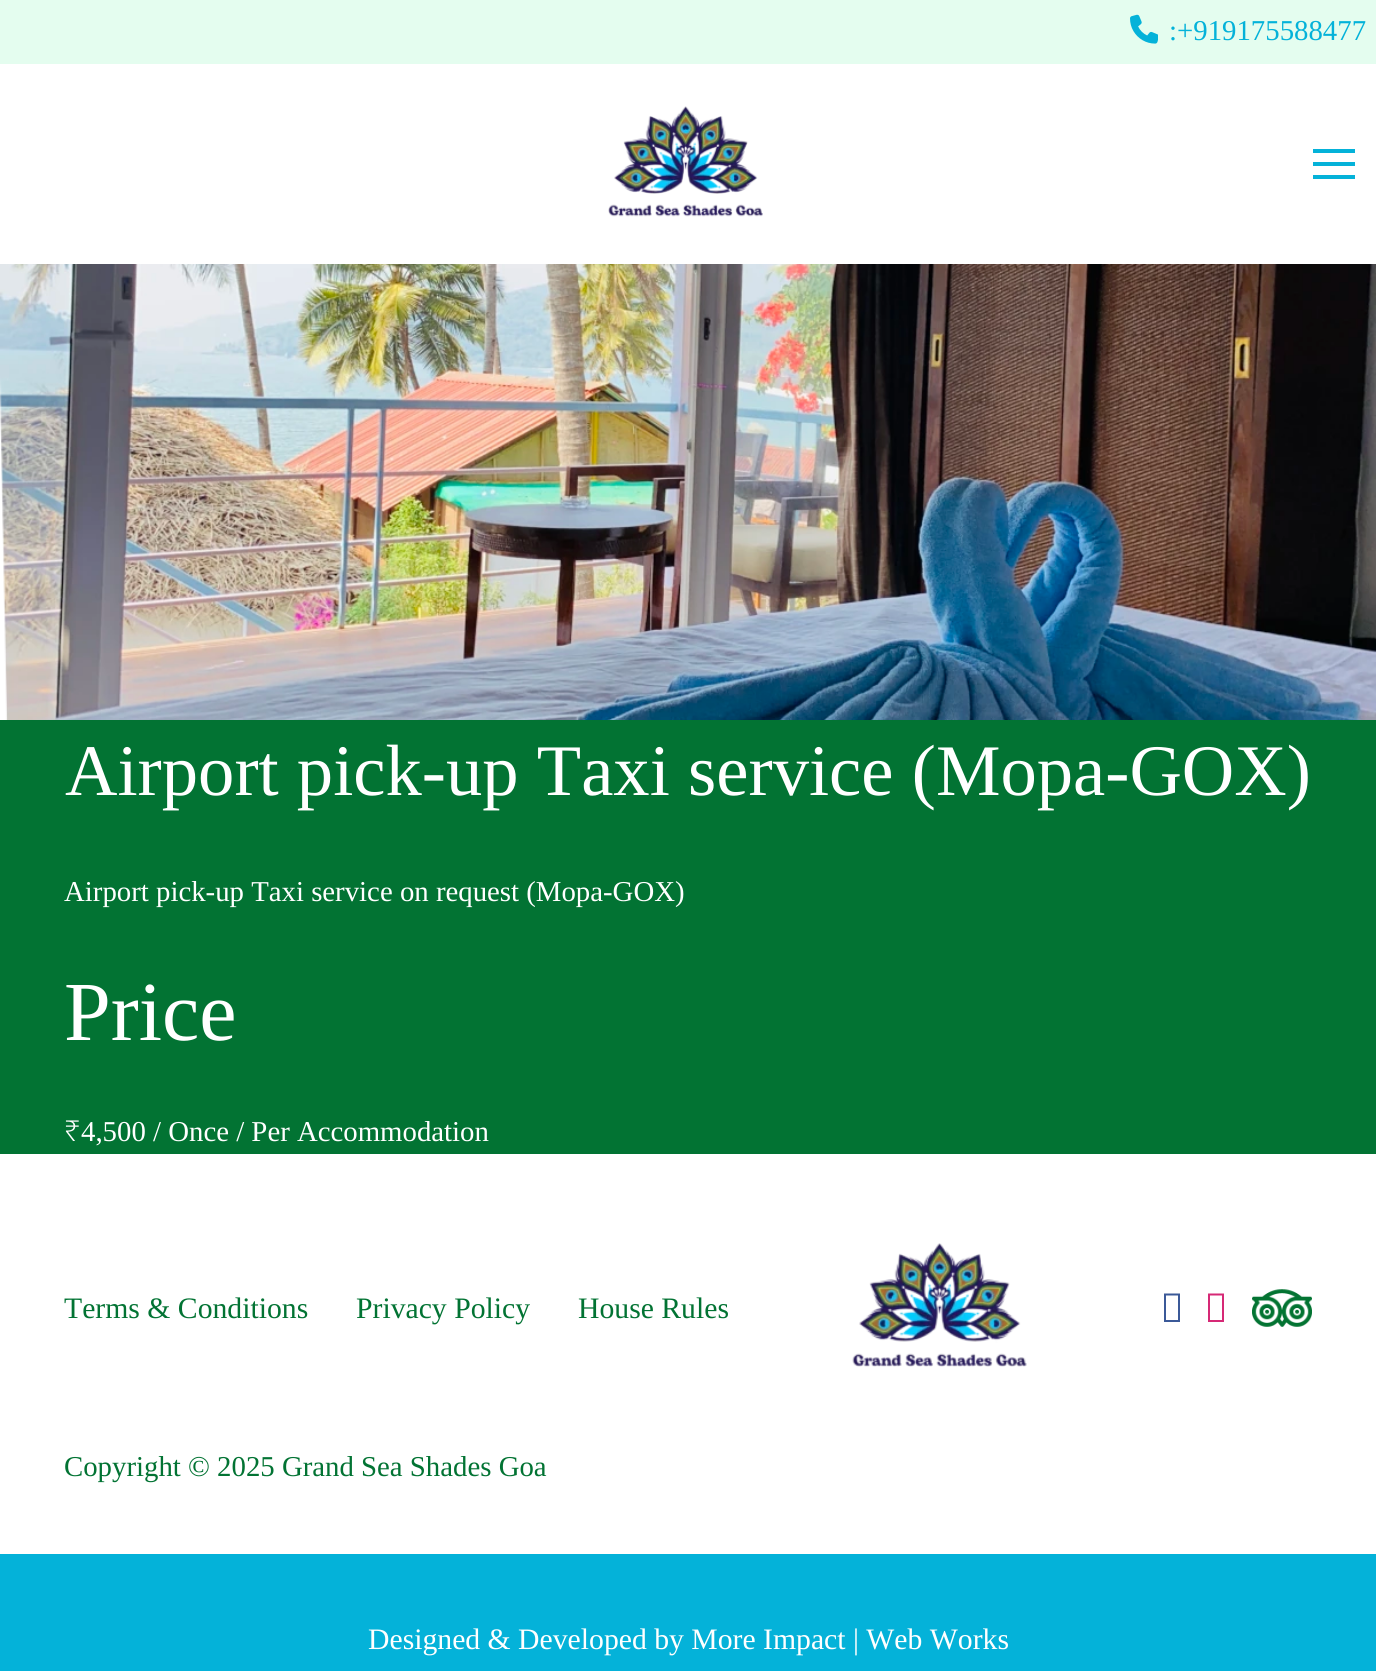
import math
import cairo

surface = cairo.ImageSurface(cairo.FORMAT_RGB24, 1376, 1671)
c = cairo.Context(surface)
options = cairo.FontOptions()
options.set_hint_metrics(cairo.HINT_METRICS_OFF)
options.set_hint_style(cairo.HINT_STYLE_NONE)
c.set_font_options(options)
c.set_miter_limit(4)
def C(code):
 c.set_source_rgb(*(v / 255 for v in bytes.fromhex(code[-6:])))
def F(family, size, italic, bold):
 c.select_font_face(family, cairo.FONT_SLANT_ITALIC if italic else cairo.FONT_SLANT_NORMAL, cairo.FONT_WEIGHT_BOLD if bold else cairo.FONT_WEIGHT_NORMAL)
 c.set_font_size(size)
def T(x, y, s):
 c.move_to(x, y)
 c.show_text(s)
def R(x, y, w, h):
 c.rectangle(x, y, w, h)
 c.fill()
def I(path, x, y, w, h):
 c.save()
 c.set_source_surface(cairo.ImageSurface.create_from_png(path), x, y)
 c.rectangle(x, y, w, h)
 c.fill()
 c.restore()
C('ffffff')
c.paint()
C('e4fdef')
R(0,0,1376,64)
I('1.png',1130,14,28,30)
F('Liberation Serif',28.8,0,0)
C('04b2d9')
T(1169,40,':+919175588477')
I('2.png',608,106,155,111)
R(1313,149,42,4)
R(1313,162,42,4)
R(1313,175,42,4)
I('3.png',0,264,1376,456)
C('027333')
R(0,720,1376,434)
F('Liberation Serif',72.6,0,0)
C('ffffff')
T(65,795,'Airport pick-up Taxi service (Mopa-GOX)')
F('Liberation Serif',28.8,0,0)
T(64,901,'Airport pick-up Taxi service on request (Mopa-GOX)')
F('Liberation Serif',84,0,0)
T(64,1040,'Price')
F('Noto Sans Light',28.8,0,0)
T(64,1141,'₹')
F('Liberation Serif',28.8,0,0)
T(81,1141,'4,500 / Once / Per Accommodation')
F('Liberation Serif',29.7,0,0)
C('027333')
T(64,1318,'Terms & Conditions')
T(356,1318,'Privacy Policy')
T(578,1318,'House Rules')
I('4.png',852,1243,175,124)
C('3b5998')
c.new_path()
c.move_to(1164,1322)
c.line_to(1164,1293.5)
c.line_to(1180,1293.5)
c.line_to(1180,1322)
c.close_path()
c.move_to(1166,1320)
c.line_to(1178,1320)
c.line_to(1178,1295.5)
c.line_to(1166,1295.5)
c.close_path()
c.fill()
C('d62976')
c.new_path()
c.move_to(1208,1322)
c.line_to(1208,1293.5)
c.line_to(1224,1293.5)
c.line_to(1224,1322)
c.close_path()
c.move_to(1210,1320)
c.line_to(1222,1320)
c.line_to(1222,1295.5)
c.line_to(1210,1295.5)
c.close_path()
c.fill()
I('5.png',1252,1289,60,38)
F('Liberation Serif',28.8,0,0)
C('027333')
T(64,1476,'Copyright © 2025 Grand Sea Shades Goa')
C('04b2d9')
R(0,1554,1376,117)
F('Liberation Serif',29.7,0,0)
C('ffffff')
T(368,1649,'Designed & Developed by More Impact | Web Works')
surface.write_to_png('o.png')
